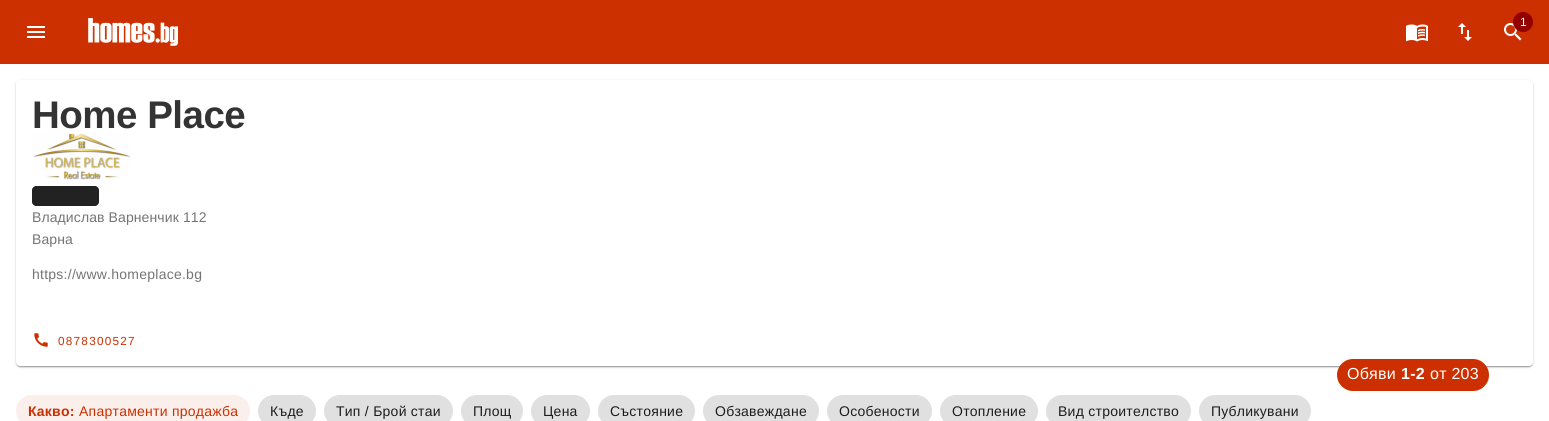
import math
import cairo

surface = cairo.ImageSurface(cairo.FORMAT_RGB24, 1549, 421)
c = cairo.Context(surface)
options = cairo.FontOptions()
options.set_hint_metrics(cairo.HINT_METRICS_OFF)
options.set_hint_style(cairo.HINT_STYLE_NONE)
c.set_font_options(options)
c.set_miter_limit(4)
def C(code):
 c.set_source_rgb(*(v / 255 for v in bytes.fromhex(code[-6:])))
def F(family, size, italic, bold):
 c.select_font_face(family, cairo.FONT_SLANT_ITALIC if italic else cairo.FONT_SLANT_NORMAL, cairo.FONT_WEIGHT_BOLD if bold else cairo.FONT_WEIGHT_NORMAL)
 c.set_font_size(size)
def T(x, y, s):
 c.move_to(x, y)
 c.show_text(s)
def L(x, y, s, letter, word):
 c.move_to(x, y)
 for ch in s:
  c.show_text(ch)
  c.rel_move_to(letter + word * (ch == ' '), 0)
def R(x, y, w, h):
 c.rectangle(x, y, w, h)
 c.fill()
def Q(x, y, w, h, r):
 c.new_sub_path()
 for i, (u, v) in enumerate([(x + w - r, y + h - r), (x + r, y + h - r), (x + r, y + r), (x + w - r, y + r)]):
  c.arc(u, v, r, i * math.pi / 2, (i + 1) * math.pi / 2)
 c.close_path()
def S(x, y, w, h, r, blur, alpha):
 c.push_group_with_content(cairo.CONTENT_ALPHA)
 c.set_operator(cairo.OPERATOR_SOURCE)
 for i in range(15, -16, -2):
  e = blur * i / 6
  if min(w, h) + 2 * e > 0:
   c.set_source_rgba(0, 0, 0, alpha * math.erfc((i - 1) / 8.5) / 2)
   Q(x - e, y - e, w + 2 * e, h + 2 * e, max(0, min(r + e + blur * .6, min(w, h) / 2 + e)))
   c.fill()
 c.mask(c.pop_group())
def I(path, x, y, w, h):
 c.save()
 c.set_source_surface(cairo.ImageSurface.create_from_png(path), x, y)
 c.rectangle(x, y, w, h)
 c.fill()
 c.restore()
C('ffffff')
c.paint()
C('cd3000')
R(0,0,1549,64)
I('1.png',27,26,18,12)
I('2.png',88,18,90,28)
I('3.png',1504,23,18,18)
C('940000')
c.arc(1523,22,10,0,2 * math.pi)
c.fill()
F('Liberation Sans',12,0,0)
C('ffffff')
T(1520,26,'1')
I('4.png',1406,24,22,18)
I('5.png',1458,23,14,18)
C('000000')
S(16,81,1517,286,4,1.5,.12)
S(16,81,1517,286,4,.5,.14)
S(17,83,1515,284,3,.5,.2)
C('ffffff')
Q(16,80,1517,286,4)
c.fill()
F('Liberation Sans',38.5,0,1)
C('333333')
L(32,128,'Home Place',-.5,0)
I('6.png',33,133,98,47)
C('222222')
c.new_path()
c.move_to(36,186)
c.line_to(95,186)
c.curve_to(97,186,99,188,99,190)
c.line_to(99,202)
c.curve_to(99,204,97,206,95,206)
c.line_to(36,206)
c.curve_to(34,206,32,204,32,202)
c.line_to(32,190)
c.curve_to(32,188,34,186,36,186)
c.close_path()
c.fill()
F('Liberation Sans',14,0,0)
C('757575')
L(32,222,'Владислав Варненчик 112',.1,0)
L(32,244,'Варна',.1,0)
L(32,279,'https://www.homeplace.bg',.25,0)
I('7.png',34,333,14,14)
F('Liberation Sans',11.75,0,0)
C('cd3000')
L(58,345,'0878300527',1.25,0)
C('fbefeb')
Q(16,395,234,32,16)
c.fill()
F('Liberation Sans',14,0,1)
C('cd3000')
L(28,416,'Какво:',.25,0)
F('Liberation Sans',14,0,0)
L(79,416,'Апартаменти продажба',.25,0)
C('e0e0e0')
Q(258,395,58,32,16)
c.fill()
C('1d1d1d')
L(270,416,'Къде',.25,0)
C('e0e0e0')
Q(324,395,129,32,16)
c.fill()
C('1d1d1d')
L(336,416,'Тип / Брой стаи',.25,0)
C('e0e0e0')
Q(461,395,62,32,16)
c.fill()
C('1d1d1d')
L(473,416,'Площ',.25,0)
C('e0e0e0')
Q(531,395,59,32,16)
c.fill()
C('1d1d1d')
L(543,416,'Цена',.25,0)
C('e0e0e0')
Q(598,395,97,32,16)
c.fill()
C('1d1d1d')
L(610,416,'Състояние',.25,0)
C('e0e0e0')
Q(703,395,116,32,16)
c.fill()
C('1d1d1d')
L(715,416,'Обзавеждане',.25,0)
C('e0e0e0')
Q(827,395,105,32,16)
c.fill()
C('1d1d1d')
L(839,416,'Особености',.25,0)
C('e0e0e0')
Q(940,395,98,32,16)
c.fill()
C('1d1d1d')
L(952,416,'Отопление',.25,0)
C('e0e0e0')
Q(1046,395,145,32,16)
c.fill()
C('1d1d1d')
L(1058,416,'Вид строителство',.25,0)
C('e0e0e0')
Q(1199,395,112,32,16)
c.fill()
C('1d1d1d')
L(1211,416,'Публикувани',.25,0)
C('cd3000')
Q(1337,359,152,32,16)
c.fill()
F('Liberation Sans',16,0,0)
C('ffffff')
L(1347,379,'Обяви',.25,0)
F('Liberation Sans',16,0,1)
L(1401,379,'1-2',.25,0)
F('Liberation Sans',16,0,0)
L(1430,379,'от 203',.25,0)
surface.write_to_png('o.png')
